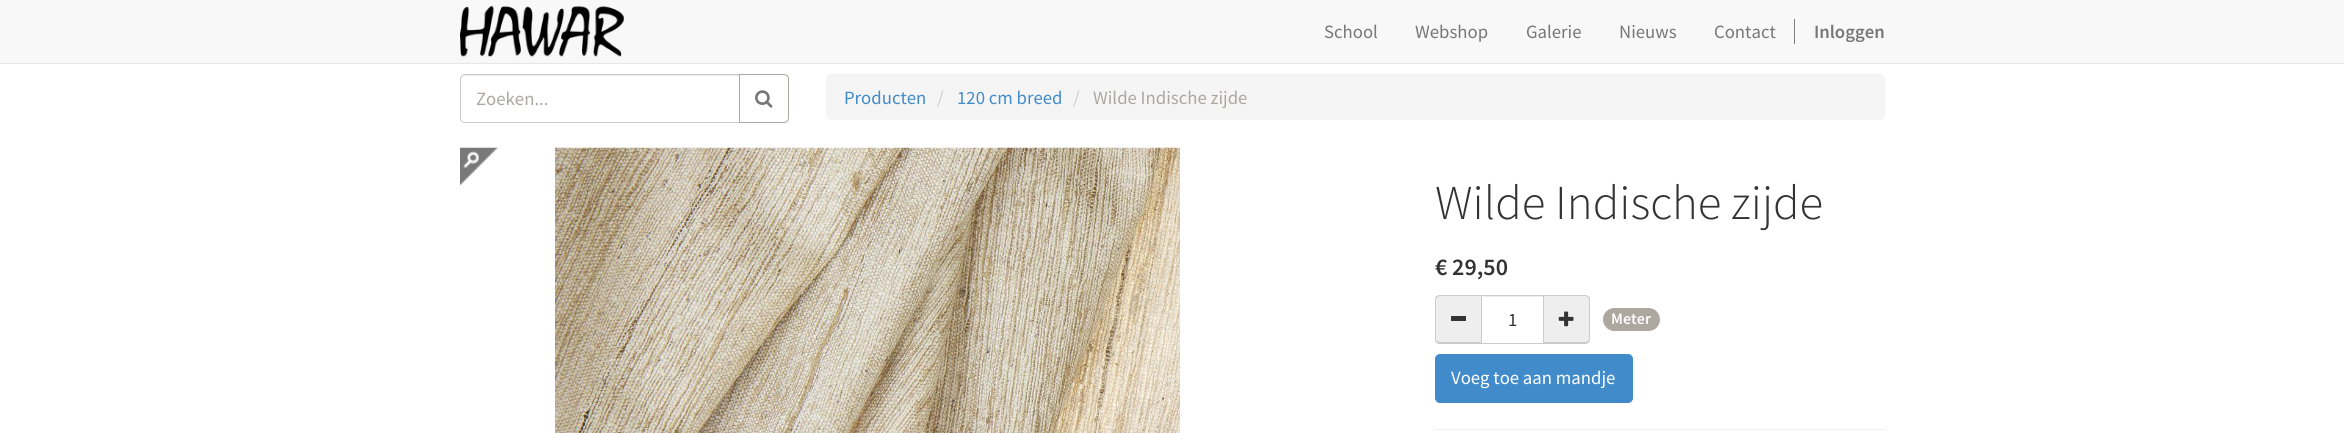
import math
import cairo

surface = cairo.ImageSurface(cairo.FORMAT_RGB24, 2344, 433)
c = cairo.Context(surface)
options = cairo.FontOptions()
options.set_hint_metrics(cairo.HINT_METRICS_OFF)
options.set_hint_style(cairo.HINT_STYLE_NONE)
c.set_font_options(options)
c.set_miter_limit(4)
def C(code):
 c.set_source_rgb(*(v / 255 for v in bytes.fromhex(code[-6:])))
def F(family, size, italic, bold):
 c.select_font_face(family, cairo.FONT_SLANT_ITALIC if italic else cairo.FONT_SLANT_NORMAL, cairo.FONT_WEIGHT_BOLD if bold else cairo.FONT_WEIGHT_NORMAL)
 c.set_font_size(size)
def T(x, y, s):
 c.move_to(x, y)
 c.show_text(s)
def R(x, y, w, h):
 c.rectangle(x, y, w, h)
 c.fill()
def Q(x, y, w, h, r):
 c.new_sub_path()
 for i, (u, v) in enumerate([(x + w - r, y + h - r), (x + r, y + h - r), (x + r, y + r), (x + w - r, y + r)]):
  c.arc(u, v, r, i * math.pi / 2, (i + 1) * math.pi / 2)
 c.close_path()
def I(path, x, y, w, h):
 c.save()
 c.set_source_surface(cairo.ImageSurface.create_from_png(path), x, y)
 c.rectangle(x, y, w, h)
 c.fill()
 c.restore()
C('ffffff')
c.paint()
C('f8f8f8')
R(0,0,2344,63)
C('e7e7e7')
R(0,63,2344,1)
I('1.png',460,6,164,51)
F('Source Sans Pro',18.75,0,0)
C('777777')
T(1324,38,'School')
T(1415,38,'Webshop')
T(1526,38,'Galerie')
T(1619,38,'Nieuws')
T(1714,38,'Contact')
C('808080')
R(1794,19,1,25)
F('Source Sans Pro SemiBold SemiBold',18.75,0,0)
C('777777')
T(1814,38,'Inloggen')
C('ececec')
c.new_path()
c.move_to(465,76)
c.line_to(739,76)
c.line_to(739,75)
c.line_to(465,75)
c.curve_to(462,75,461,77,461,80)
c.curve_to(461,78,463,76,465,76)
c.close_path()
c.fill()
c.new_path()
c.move_to(465,74.5)
c.line_to(739.5,74.5)
c.line_to(739.5,122.5)
c.line_to(465,122.5)
c.curve_to(462.5,122.5,460.5,120.5,460.5,118)
c.line_to(460.5,79)
c.curve_to(460.5,76.5,462.5,74.5,465,74.5)
c.close_path()
C('cccccc')
c.set_line_width(1)
c.stroke()
F('Source Sans Pro',18.75,0,0)
C('aea79f')
T(476,105,'Zoeken...')
C('ffffff')
c.new_path()
c.move_to(739.5,74.5)
c.line_to(784,74.5)
c.curve_to(786.5,74.5,788.5,76.5,788.5,79)
c.line_to(788.5,118)
c.curve_to(788.5,120.5,786.5,122.5,784,122.5)
c.line_to(739.5,122.5)
c.close_path()
c.fill_preserve()
C('aea79f')
c.stroke()
I('2.png',755,90,18,18)
C('f5f5f5')
Q(826,74,1059,46,5)
c.fill()
C('428bca')
T(844,104,'Producten')
C('cccccc')
T(937,104,'/')
C('428bca')
T(957,104,'120 cm breed')
C('cccccc')
T(1073,104,'/')
C('aea79f')
T(1093,104,'Wilde Indische zijde')
I('3.png',460,147,38,39)
I('4.png',555,147,625,286)
F('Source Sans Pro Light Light',48.75,0,0)
C('333333')
T(1435,219,'Wilde Indische zijde')
F('Source Sans Pro SemiBold SemiBold',24,0,0)
T(1435,275,'€ 29,50')
C('eeeeee')
c.new_path()
c.move_to(1440,295)
c.line_to(1481,295)
c.line_to(1481,344)
c.line_to(1440,344)
c.curve_to(1437,344,1435,342,1435,339)
c.line_to(1435,300)
c.curve_to(1435,297,1437,295,1440,295)
c.close_path()
c.fill()
C('cccccc')
c.set_fill_rule(cairo.FILL_RULE_EVEN_ODD)
c.new_path()
c.move_to(1440,295)
c.line_to(1481,295)
c.line_to(1481,344)
c.line_to(1440,344)
c.curve_to(1437,344,1435,342,1435,339)
c.line_to(1435,300)
c.curve_to(1435,297,1437,295,1440,295)
c.close_path()
c.move_to(1440,296)
c.line_to(1481,296)
c.line_to(1481,342)
c.line_to(1440,342)
c.curve_to(1438,342,1436,341,1436,339)
c.line_to(1436,300)
c.curve_to(1436,298,1438,296,1440,296)
c.close_path()
c.fill()
C('333333')
R(1451,316,15,5)
C('ececec')
R(1483,296,60,1)
c.rectangle(1481.5,295.5,62,48)
C('cccccc')
c.stroke()
F('Source Sans Pro',18.75,0,0)
C('333333')
T(1508,326,'1')
C('eeeeee')
c.new_path()
c.move_to(1544,295)
c.line_to(1585,295)
c.curve_to(1588,295,1590,297,1590,300)
c.line_to(1590,339)
c.curve_to(1590,342,1588,344,1585,344)
c.line_to(1544,344)
c.close_path()
c.fill()
C('cccccc')
c.new_path()
c.move_to(1544,295)
c.line_to(1585,295)
c.curve_to(1588,295,1590,297,1590,300)
c.line_to(1590,339)
c.curve_to(1590,342,1588,344,1585,344)
c.line_to(1544,344)
c.close_path()
c.move_to(1544,296)
c.line_to(1585,296)
c.curve_to(1587,296,1589,298,1589,300)
c.line_to(1589,339)
c.curve_to(1589,341,1587,342,1585,342)
c.line_to(1544,342)
c.close_path()
c.fill()
I('5.png',1558,311,16,16)
C('aea79f')
Q(1603,308,57,23,11.5)
c.fill()
F('Source Sans Pro SemiBold SemiBold',16,0,0)
C('ffffff')
T(1611,324,'Meter')
C('428bca')
Q(1435.5,354.5,197,48,4.5)
c.fill_preserve()
c.stroke()
F('Source Sans Pro',18.75,0,0)
C('ffffff')
T(1451,384,'Voeg toe aan mandje')
C('eeeeee')
R(1435,429,450,1)
surface.write_to_png('o.png')
